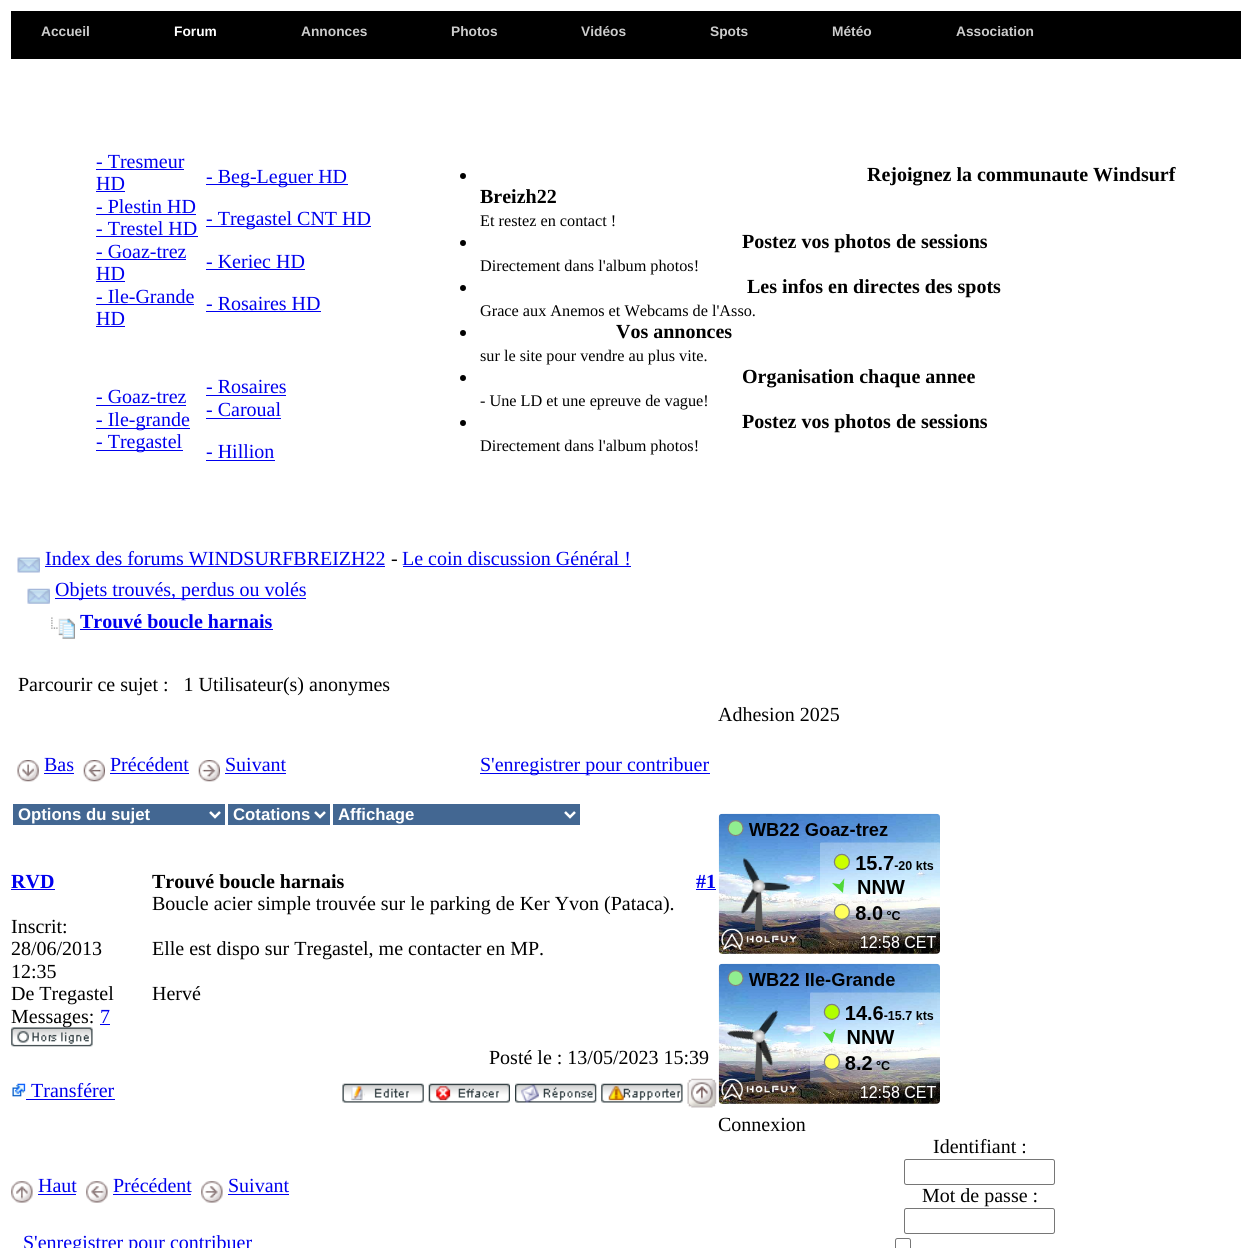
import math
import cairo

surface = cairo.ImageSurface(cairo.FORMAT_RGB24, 1252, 1248)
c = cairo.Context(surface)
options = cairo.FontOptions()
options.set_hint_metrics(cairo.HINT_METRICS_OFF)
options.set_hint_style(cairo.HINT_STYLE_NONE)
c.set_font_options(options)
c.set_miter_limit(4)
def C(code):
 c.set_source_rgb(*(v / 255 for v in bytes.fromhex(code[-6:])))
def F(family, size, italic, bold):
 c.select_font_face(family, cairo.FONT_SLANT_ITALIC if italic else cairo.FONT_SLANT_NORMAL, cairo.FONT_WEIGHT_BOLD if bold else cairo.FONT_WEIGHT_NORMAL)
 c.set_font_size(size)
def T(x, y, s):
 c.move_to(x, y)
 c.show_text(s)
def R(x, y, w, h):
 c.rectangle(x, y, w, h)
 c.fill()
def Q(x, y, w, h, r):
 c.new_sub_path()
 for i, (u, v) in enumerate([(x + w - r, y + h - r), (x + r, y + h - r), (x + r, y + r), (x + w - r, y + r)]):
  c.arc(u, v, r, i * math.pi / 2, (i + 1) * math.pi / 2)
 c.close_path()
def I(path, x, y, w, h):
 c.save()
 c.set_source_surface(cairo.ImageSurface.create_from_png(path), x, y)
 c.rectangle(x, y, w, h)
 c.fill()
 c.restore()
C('ffffff')
c.paint()
C('000000')
R(11,11,1230,48)
F('Liberation Sans',13.75,0,1)
C('cccccc')
T(41,36,'Accueil')
C('ffffff')
T(174,36,'Forum')
C('cccccc')
T(301,36,'Annonces')
T(451,36,'Photos')
T(581,36,'Vidéos')
T(710,36,'Spots')
T(832,36,'Météo')
T(956,36,'Association')
F('Liberation Serif',20,0,0)
C('0000ee')
T(96,168,'- Tresmeur')
R(96,169,88,1)
T(96,190,'HD')
R(96,191,29,1)
T(96,213,'- Plestin HD')
R(96,214,100,1)
T(96,235,'- Trestel HD')
R(96,236,102,1)
T(96,258,'- Goaz-trez')
R(96,259,90,1)
T(96,280,'HD')
R(96,281,29,1)
T(96,303,'- Ile-Grande')
R(96,304,98,1)
T(96,325,'HD')
R(96,326,29,1)
R(206,184,142,1)
T(206,183,'- Beg-Leguer HD')
R(206,226,165,1)
T(206,225,'- Tregastel CNT HD')
T(206,268,'- Keriec HD')
R(206,269,99,1)
T(206,310,'- Rosaires HD')
R(206,311,115,1)
T(96,403,'- Goaz-trez')
R(96,405,90,1)
R(96,428,94,1)
T(96,426,'- Ile-grande')
R(96,450,87,1)
T(96,448,'- Tregastel')
T(206,393,'- Rosaires')
R(206,395,80,1)
T(206,416,'- Caroual')
R(206,418,75,1)
T(206,458,'- Hillion')
R(206,460,69,1)
C('000000')
c.new_path()
c.arc(463,176,3,0,2 * math.pi)
c.fill()
F('Liberation Serif',20,0,1)
T(867,181,'Rejoignez la communaute Windsurf')
T(480,203,'Breizh22')
F('Liberation Serif',16.25,0,0)
T(480,226,'Et restez en contact !')
c.new_path()
c.arc(463,243,3,0,2 * math.pi)
c.fill()
F('Liberation Serif',20,0,1)
T(742,248,'Postez vos photos de sessions')
F('Liberation Serif',16.25,0,0)
T(480,271,'Directement dans l\'album photos!')
c.new_path()
c.arc(463,288,3,0,2 * math.pi)
c.fill()
F('Liberation Serif',20,0,1)
T(747,293,'Les infos en directes des spots')
F('Liberation Serif',16.25,0,0)
T(480,316,'Grace aux Anemos et Webcams de l\'Asso.')
c.new_path()
c.arc(463,333,3,0,2 * math.pi)
c.fill()
F('Liberation Serif',20,0,1)
T(616,338,'Vos annonces')
F('Liberation Serif',16.25,0,0)
T(480,361,'sur le site pour vendre au plus vite.')
c.new_path()
c.arc(463,378,3,0,2 * math.pi)
c.fill()
F('Liberation Serif',20,0,1)
T(742,383,'Organisation chaque annee')
F('Liberation Serif',16.25,0,0)
T(480,406,'- Une LD et une epreuve de vague!')
c.new_path()
c.arc(463,423,3,0,2 * math.pi)
c.fill()
F('Liberation Serif',20,0,1)
T(742,428,'Postez vos photos de sessions')
F('Liberation Serif',16.25,0,0)
T(480,451,'Directement dans l\'album photos!')
I('1.png',17,557,23,16)
F('Liberation Serif',20,0,0)
C('0000ee')
T(45,565,'Index des forums WINDSURFBREIZH22')
R(45,566,340,1)
C('000000')
T(391,565,'-')
C('0000ee')
T(402,565,'Le coin discussion Général !')
R(403,566,228,1)
I('2.png',27,588,23,16)
R(55,598,251,1)
T(55,596,'Objets trouvés, perdus ou volés')
I('3.png',51,617,24,22)
F('Liberation Serif',20,0,1)
T(80,628,'Trouvé boucle harnais')
R(80,629,193,1)
F('Liberation Serif',20,0,0)
C('000000')
T(18,691,'Parcourir ce sujet :   1 Utilisateur(s) anonymes')
I('4.png',17,760,22,22)
C('0000ee')
T(44,771,'Bas')
R(44,773,30,1)
I('5.png',83,760,22,22)
T(110,771,'Précédent')
R(110,773,79,1)
I('6.png',198,760,22,22)
T(225,771,'Suivant')
R(225,773,61,1)
R(480,773,230,1)
T(480,771,'S\'enregistrer pour contribuer')
C('436792')
R(13,804,212,21)
c.new_path()
c.move_to(210,812)
c.line_to(215,817)
c.line_to(220,812)
C('ffffff')
c.set_line_width(2.5)
c.stroke()
F('Liberation Sans',16.75,0,1)
T(18,820,'Options du sujet')
C('436792')
R(228,804,102,21)
c.new_path()
c.move_to(315,812)
c.line_to(320,817)
c.line_to(325,812)
C('ffffff')
c.stroke()
T(233,820,'Cotations')
C('436792')
R(333,804,247,21)
c.new_path()
c.move_to(565,812)
c.line_to(570,817)
c.line_to(575,812)
C('ffffff')
c.stroke()
T(338,820,'Affichage')
F('Liberation Serif',20,0,1)
C('0000ee')
T(11,888,'RVD')
R(11,889,44,1)
C('000000')
T(152,888,'Trouvé boucle harnais')
C('0000ee')
T(696,888,'#1')
R(696,889,20,1)
F('Liberation Serif',20,0,0)
C('000000')
T(11,933,'Inscrit:')
T(11,955,'28/06/2013')
T(11,978,'12:35')
T(11,1000,'De Tregastel')
T(11,1023,'Messages:')
C('0000ee')
T(100,1023,'7')
R(100,1024,10,1)
I('7.png',11,1027,82,20)
C('000000')
T(152,910,'Boucle acier simple trouvée sur le parking de Ker Yvon (Pataca).')
T(152,955,'Elle est dispo sur Tregastel, me contacter en MP.')
T(152,1000,'Hervé')
T(489,1064,'Posté le : 13/05/2023 15:39')
I('8.png',12,1083,14,14)
C('0000ee')
T(31,1097,'Transférer')
R(26,1099,89,1)
I('9.png',342,1083,82,20)
I('10.png',428,1083,82,20)
I('11.png',515,1083,82,20)
I('12.png',601,1083,82,20)
I('13.png',687,1078,30,30)
I('14.png',11,1181,22,22)
T(38,1192,'Haut')
R(38,1194,38,1)
I('15.png',86,1181,22,22)
T(113,1192,'Précédent')
R(113,1194,78,1)
I('16.png',201,1181,22,22)
T(228,1192,'Suivant')
R(228,1194,61,1)
T(23,1249,'S\'enregistrer pour contribuer')
C('000000')
T(718,721,'Adhesion 2025')
I('17.png',718,813,222,141)
I('18.png',718,963,222,141)
T(718,1131,'Connexion')
T(933,1153,'Identifiant :')
Q(904.5,1159.5,150,25,2)
C('767676')
c.set_line_width(1)
c.stroke()
C('000000')
T(922,1202,'Mot de passe :')
Q(904.5,1208.5,150,25,2)
C('767676')
c.stroke()
Q(895.5,1238.5,15,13,2)
c.stroke()
surface.write_to_png('o.png')
